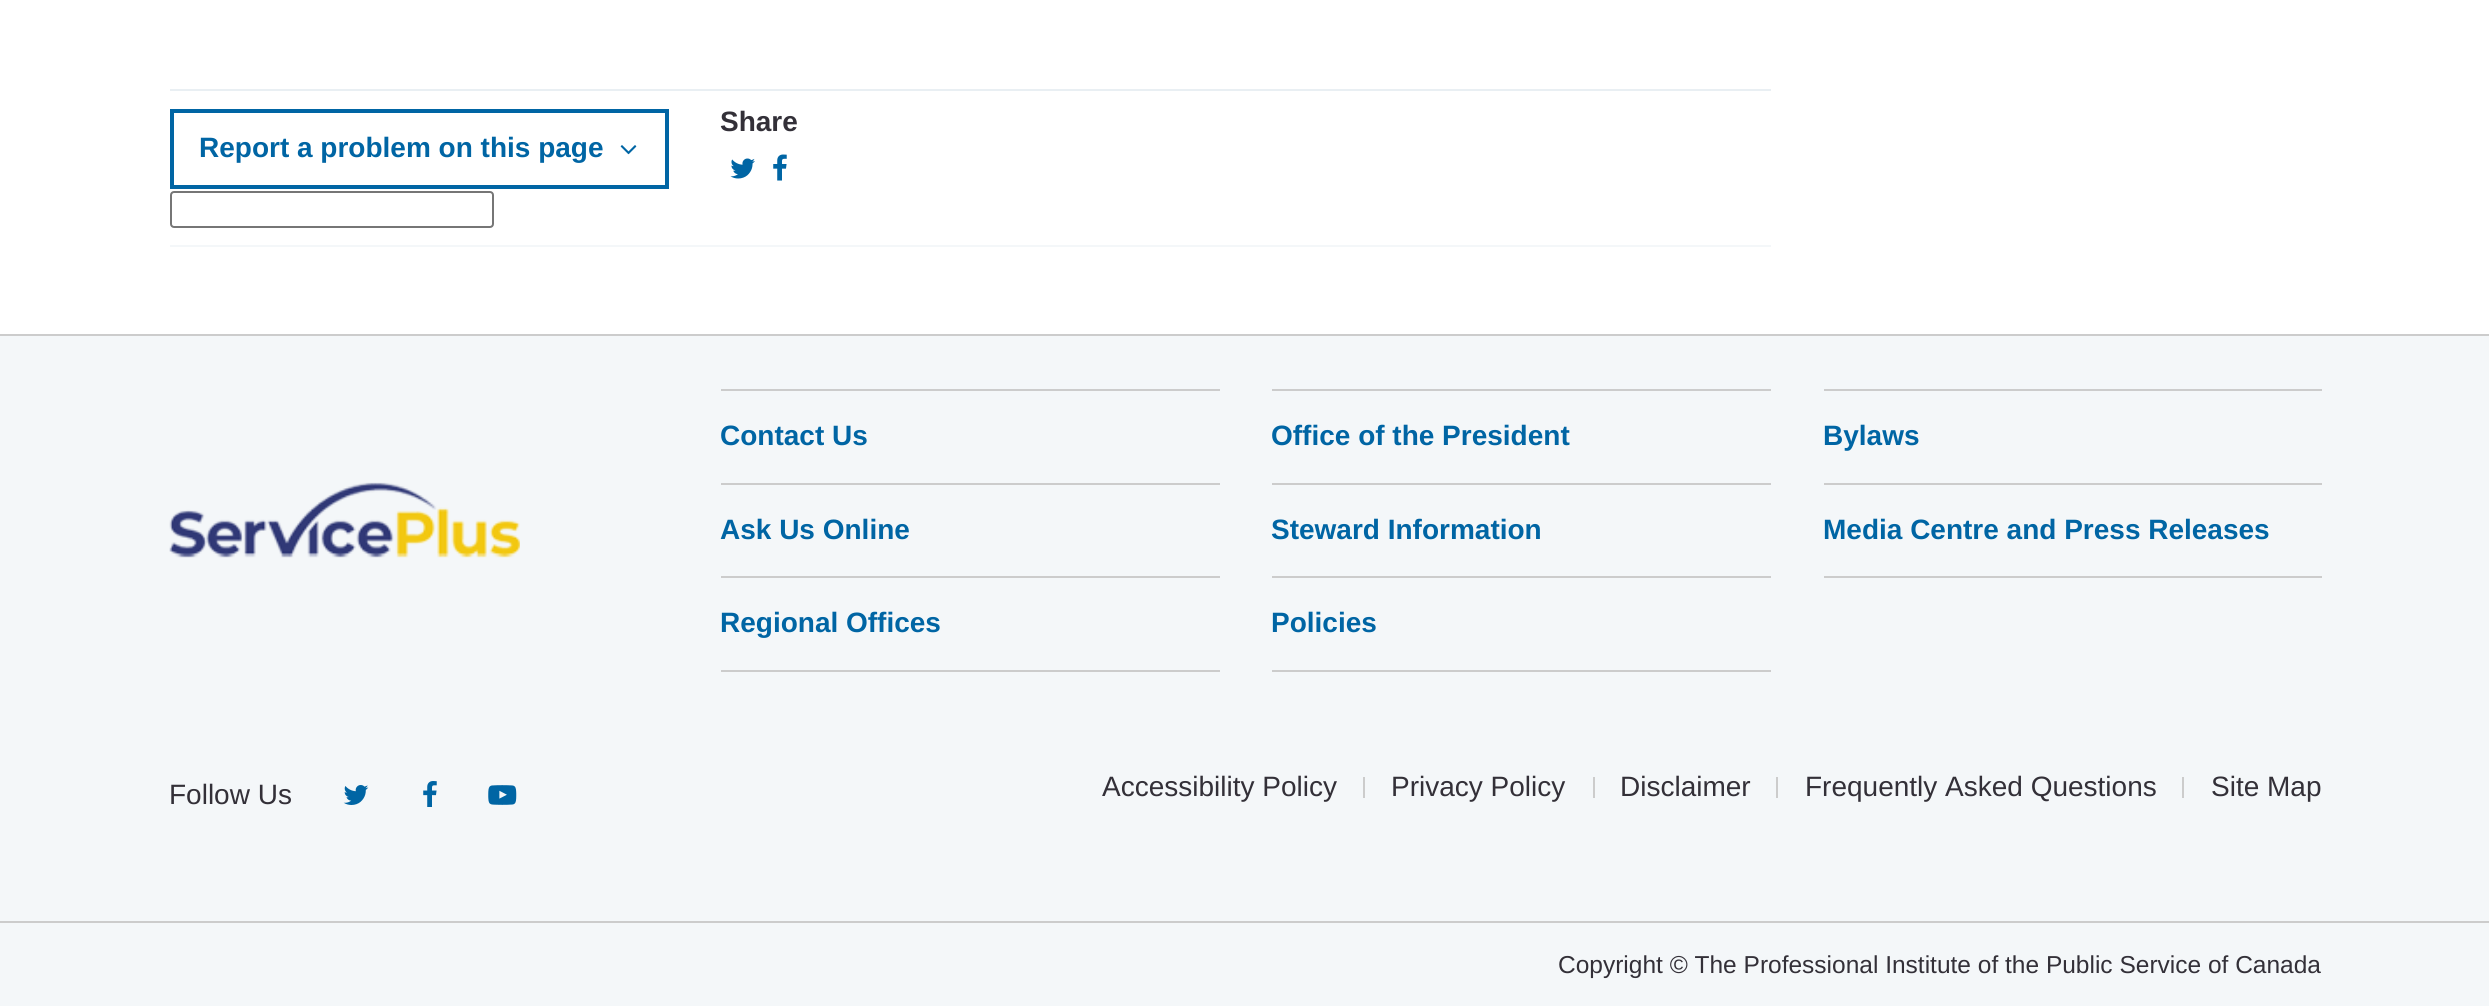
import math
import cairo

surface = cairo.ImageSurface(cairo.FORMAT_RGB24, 2489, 1008)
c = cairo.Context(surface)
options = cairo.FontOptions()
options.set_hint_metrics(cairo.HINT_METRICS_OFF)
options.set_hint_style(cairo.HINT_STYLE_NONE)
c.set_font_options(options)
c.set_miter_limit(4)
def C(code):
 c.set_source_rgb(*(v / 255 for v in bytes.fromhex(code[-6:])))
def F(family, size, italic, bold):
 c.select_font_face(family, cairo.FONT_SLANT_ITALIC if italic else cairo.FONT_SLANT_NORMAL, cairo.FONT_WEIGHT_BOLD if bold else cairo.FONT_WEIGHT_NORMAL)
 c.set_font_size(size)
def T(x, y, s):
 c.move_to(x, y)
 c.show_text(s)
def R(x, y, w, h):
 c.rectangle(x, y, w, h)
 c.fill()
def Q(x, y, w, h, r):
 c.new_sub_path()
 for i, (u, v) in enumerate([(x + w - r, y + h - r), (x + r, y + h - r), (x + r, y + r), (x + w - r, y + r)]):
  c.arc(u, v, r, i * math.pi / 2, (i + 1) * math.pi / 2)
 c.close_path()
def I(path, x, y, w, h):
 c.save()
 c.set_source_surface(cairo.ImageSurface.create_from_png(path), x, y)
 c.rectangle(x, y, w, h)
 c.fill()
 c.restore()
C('ffffff')
c.paint()
C('e9eff3')
R(170,89,1601,2)
C('f4f7f9')
R(170,245,1601,2)
F('Liberation Sans',28,0,1)
C('333038')
T(720,131,'Share')
I('1.png',730,158,25,21)
I('2.png',773,154,14,27)
c.rectangle(172,111,495,76)
C('0065a4')
c.set_line_width(4)
c.stroke()
T(199,157,'Report a problem on this page')
I('3.png',620,145,17,10)
Q(171,192,322,35,3)
C('767676')
c.set_line_width(2)
c.stroke()
C('f4f7f9')
R(0,336,2489,670)
C('cccccc')
R(0,334,2489,2)
I('4.png',169,482,351,76)
R(721,389,499,2)
R(721,483,499,2)
C('0065a4')
T(720,445,'Contact Us')
C('cccccc')
R(721,576,499,2)
C('0065a4')
T(720,539,'Ask Us Online')
C('cccccc')
R(721,670,499,2)
C('0065a4')
T(720,632,'Regional Offices')
C('cccccc')
R(1272,389,499,2)
R(1272,483,499,2)
C('0065a4')
T(1271,445,'Office of the President')
C('cccccc')
R(1272,576,499,2)
C('0065a4')
T(1271,539,'Steward Information')
C('cccccc')
R(1272,670,499,2)
C('0065a4')
T(1271,632,'Policies')
C('cccccc')
R(1824,389,498,2)
R(1824,483,498,2)
C('0065a4')
T(1823,445,'Bylaws')
C('cccccc')
R(1824,576,498,2)
C('0065a4')
T(1823,539,'Media Centre and Press Releases')
F('Liberation Sans',28,0,0)
C('333038')
T(169,804,'Follow Us')
I('5.png',343,785,26,20)
I('6.png',423,781,14,26)
I('7.png',488,785,29,20)
C('cccccc')
R(1363,777,2,21)
C('333038')
T(1102,796,'Accessibility Policy')
C('cccccc')
R(1593,777,2,21)
C('333038')
T(1391,796,'Privacy Policy')
C('cccccc')
R(1776,777,2,21)
C('333038')
T(1620,796,'Disclaimer')
C('cccccc')
R(2182,777,2,21)
C('333038')
T(1805,796,'Frequently Asked Questions')
T(2211,796,'Site Map')
C('cccccc')
R(0,921,2489,2)
F('Liberation Sans',24.5,0,0)
C('333038')
T(1558,973,'Copyright © The Professional Institute of the Public Service of Canada')
surface.write_to_png('o.png')
